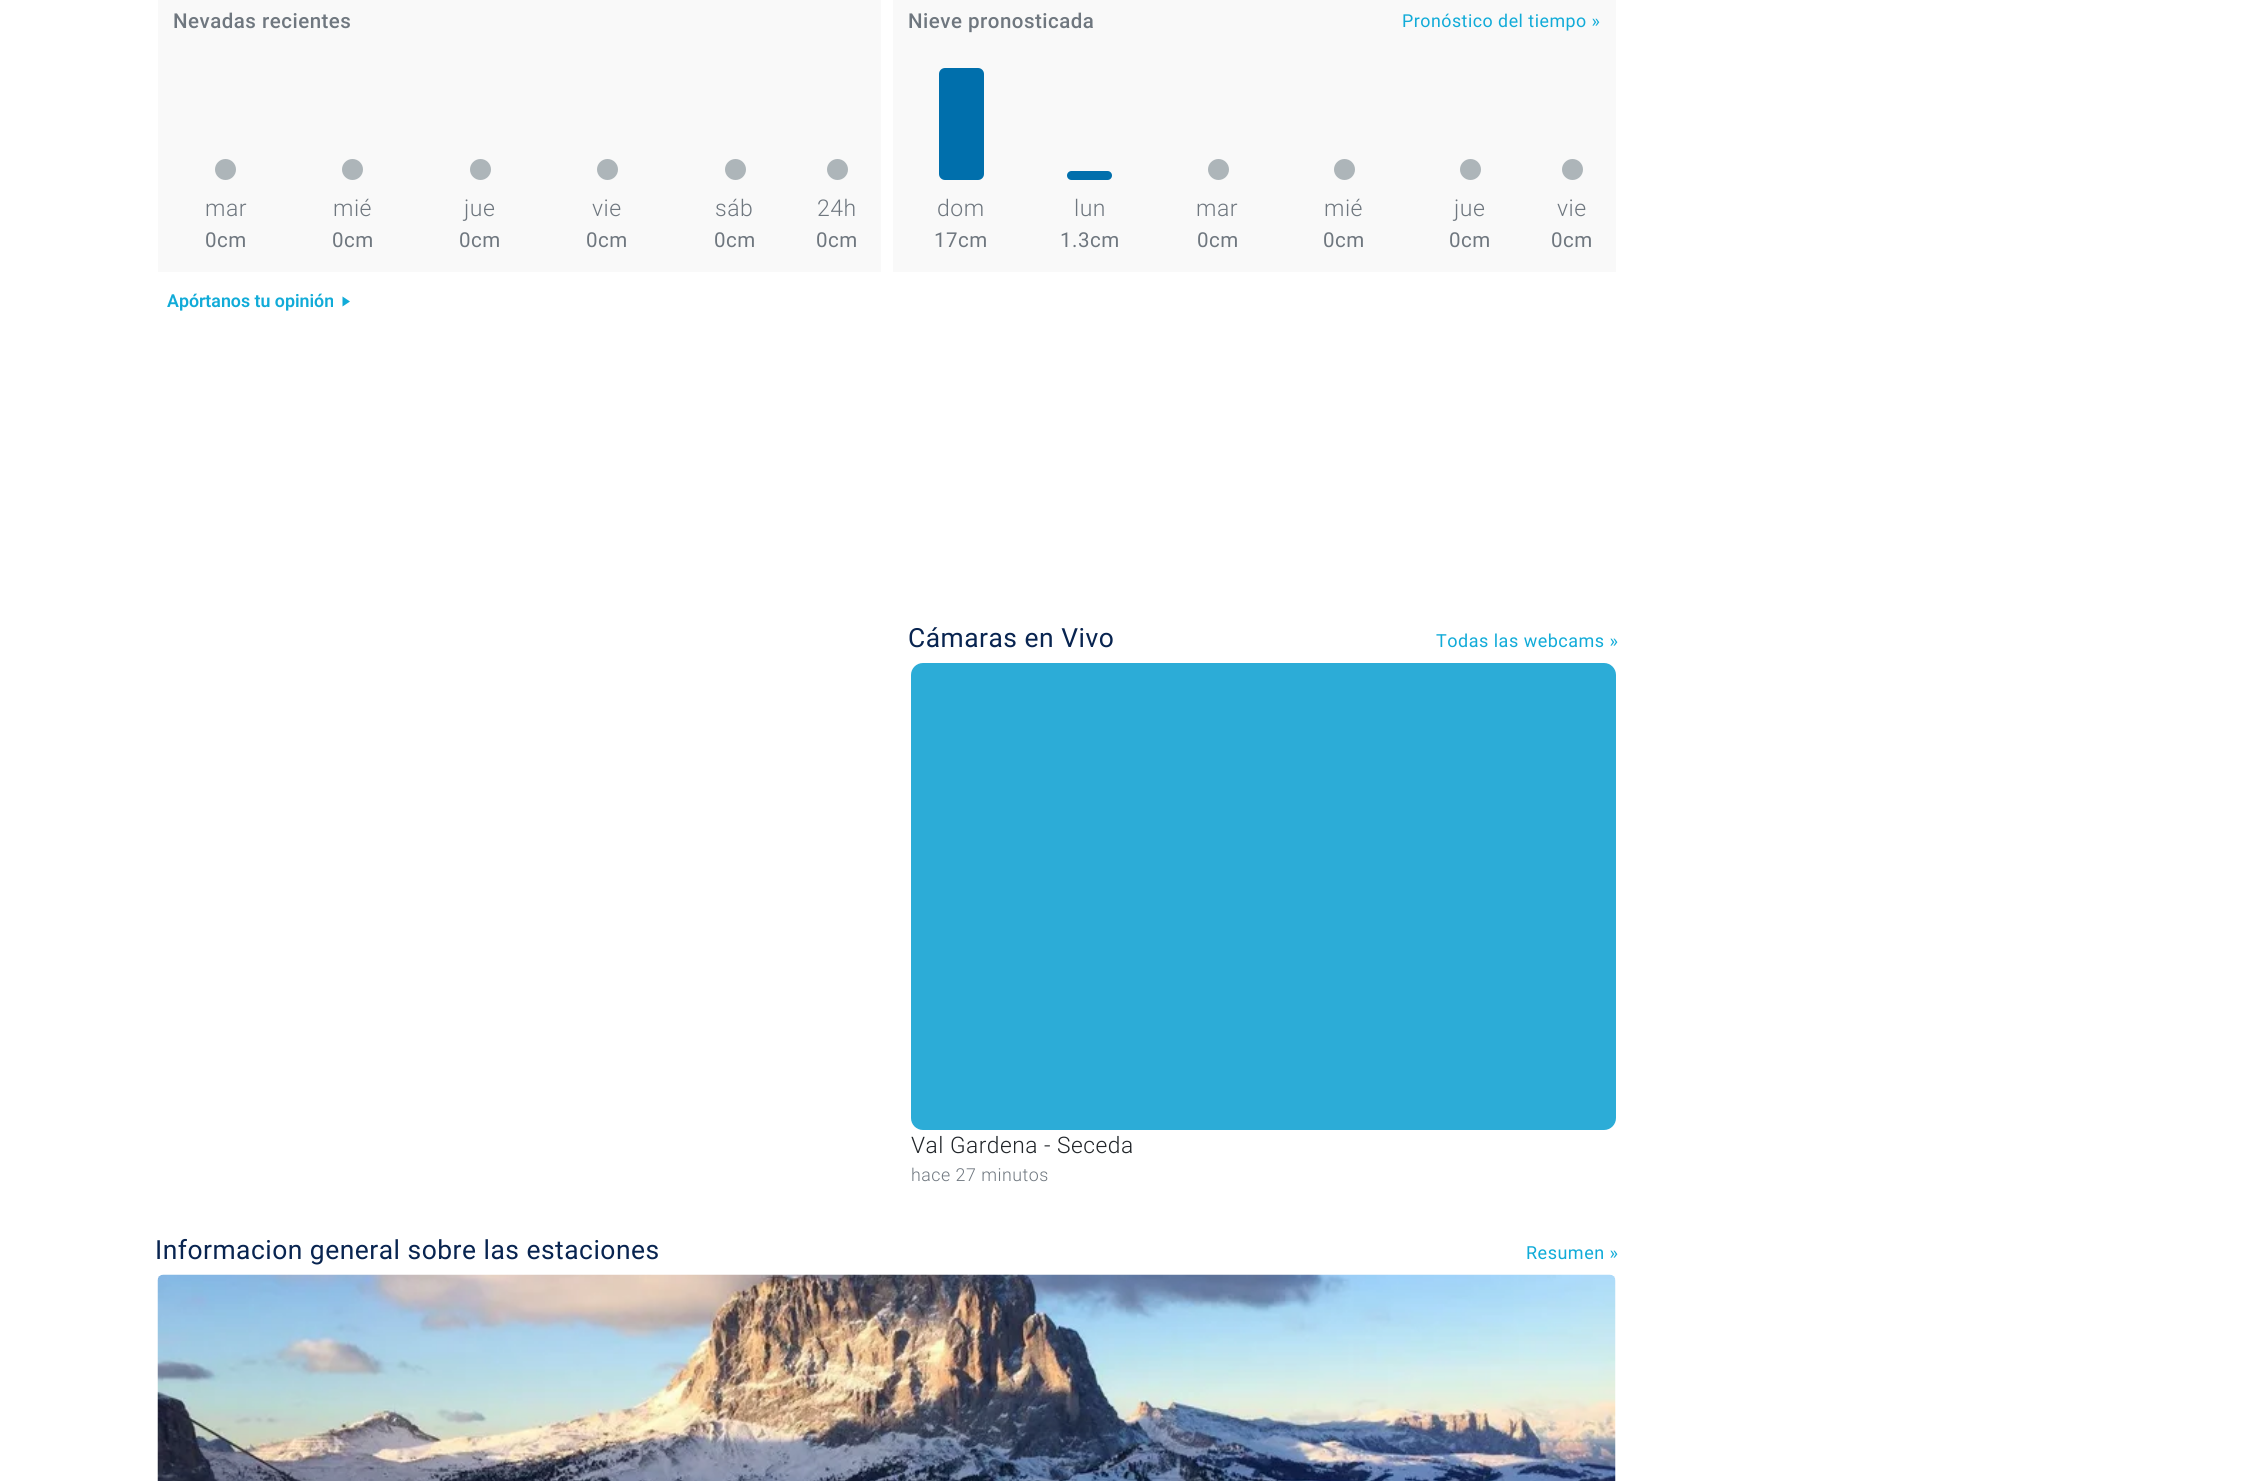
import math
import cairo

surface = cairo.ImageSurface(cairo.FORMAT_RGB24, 2268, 1481)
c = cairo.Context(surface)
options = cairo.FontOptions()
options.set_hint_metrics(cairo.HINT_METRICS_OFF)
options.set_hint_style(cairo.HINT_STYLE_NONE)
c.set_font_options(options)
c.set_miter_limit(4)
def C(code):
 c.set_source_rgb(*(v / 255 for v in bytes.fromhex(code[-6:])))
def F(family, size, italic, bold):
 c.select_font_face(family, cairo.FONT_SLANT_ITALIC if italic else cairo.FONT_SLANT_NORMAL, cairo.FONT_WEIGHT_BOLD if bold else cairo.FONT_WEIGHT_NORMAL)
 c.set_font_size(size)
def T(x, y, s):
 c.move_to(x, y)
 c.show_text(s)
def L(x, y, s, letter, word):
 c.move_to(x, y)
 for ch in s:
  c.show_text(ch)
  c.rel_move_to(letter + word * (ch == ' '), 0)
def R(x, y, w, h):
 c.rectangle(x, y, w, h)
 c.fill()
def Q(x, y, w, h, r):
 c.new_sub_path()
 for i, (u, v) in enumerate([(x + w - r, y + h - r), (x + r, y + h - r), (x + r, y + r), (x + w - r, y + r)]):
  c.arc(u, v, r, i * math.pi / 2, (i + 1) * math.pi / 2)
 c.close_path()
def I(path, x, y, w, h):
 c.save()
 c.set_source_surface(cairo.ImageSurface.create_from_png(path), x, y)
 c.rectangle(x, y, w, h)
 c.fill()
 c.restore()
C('ffffff')
c.paint()
C('f9f9f9')
R(158,0,723,272)
F('Roboto Medium',20.5,0,0)
C('6f777f')
L(173,28,'Nevadas recientes',.5,0)
C('adb5b9')
c.new_path()
c.arc(225.5,169.5,10.5,0,2 * math.pi)
c.fill()
c.arc(352.5,169.5,10.5,0,2 * math.pi)
c.fill()
c.arc(480.5,169.5,10.5,0,2 * math.pi)
c.fill()
c.arc(607.5,169.5,10.5,0,2 * math.pi)
c.fill()
c.arc(735.5,169.5,10.5,0,2 * math.pi)
c.fill()
c.arc(837.5,169.5,10.5,0,2 * math.pi)
c.fill()
F('Roboto Light',23,0,0)
C('6f777f')
L(205,216,'mar',.5,0)
L(333,216,'mié',.5,0)
L(464,216,'jue',.5,0)
L(592,216,'vie',.5,0)
L(715,216,'sáb',.5,0)
L(817,216,'24h',.5,0)
F('Roboto',20.5,0,0)
L(205,247,'0cm',.5,0)
L(332,247,'0cm',.5,0)
L(459,247,'0cm',.5,0)
L(586,247,'0cm',.5,0)
L(714,247,'0cm',.5,0)
L(816,247,'0cm',.5,0)
C('f9f9f9')
R(893,0,723,272)
F('Roboto Medium',20.5,0,0)
C('6f777f')
L(908,28,'Nieve pronosticada',.5,0)
F('Roboto',17.8,0,0)
C('11abd8')
L(1402,27,'Pronóstico del tiempo »',.5,0)
C('006fac')
Q(939,68,45,112,6)
c.fill()
Q(1067,171,45,9,4.5)
c.fill()
C('adb5b9')
c.arc(1218.5,169.5,10.5,0,2 * math.pi)
c.fill()
c.arc(1344.5,169.5,10.5,0,2 * math.pi)
c.fill()
c.arc(1470.5,169.5,10.5,0,2 * math.pi)
c.fill()
c.arc(1572.5,169.5,10.5,0,2 * math.pi)
c.fill()
F('Roboto Light',23,0,0)
C('6f777f')
L(937,216,'dom',.5,0)
L(1074,216,'lun',.5,0)
L(1196,216,'mar',.5,0)
L(1324,216,'mié',.5,0)
L(1454,216,'jue',.5,0)
L(1557,216,'vie',.5,0)
F('Roboto',20.5,0,0)
L(934,247,'17cm',.5,0)
L(1060,247,'1.3cm',.5,0)
L(1197,247,'0cm',.5,0)
L(1323,247,'0cm',.5,0)
L(1449,247,'0cm',.5,0)
L(1551,247,'0cm',.5,0)
F('Roboto SemiBold',17.8,0,0)
C('11abd8')
T(167,307,'Apórtanos tu opinión')
c.new_path()
c.move_to(350,301.5)
c.line_to(342.5,306.5)
c.line_to(342.5,296.5)
c.close_path()
c.fill()
F('Roboto',26.4,0,0)
C('082450')
L(908,647,'Cámaras en Vivo',.5,0)
F('Roboto',18,0,0)
C('11abd8')
L(1436,647,'Todas las webcams »',.5,0)
C('2cacd7')
Q(911,663,705,467,12)
c.fill()
F('Roboto Light',22.75,0,0)
C('212529')
L(911,1153,'Val Gardena - Seceda',.5,0)
F('Roboto Light',17.8,0,0)
C('6f777f')
L(911,1181,'hace 27 minutos',.5,0)
F('Roboto',26.4,0,0)
C('082450')
L(155,1259,'Informacion general sobre las estaciones',.5,0)
F('Roboto',18,0,0)
C('11abd8')
L(1526,1259,'Resumen »',.5,0)
I('1.png',157,1274,1459,207)
surface.write_to_png('o.png')
